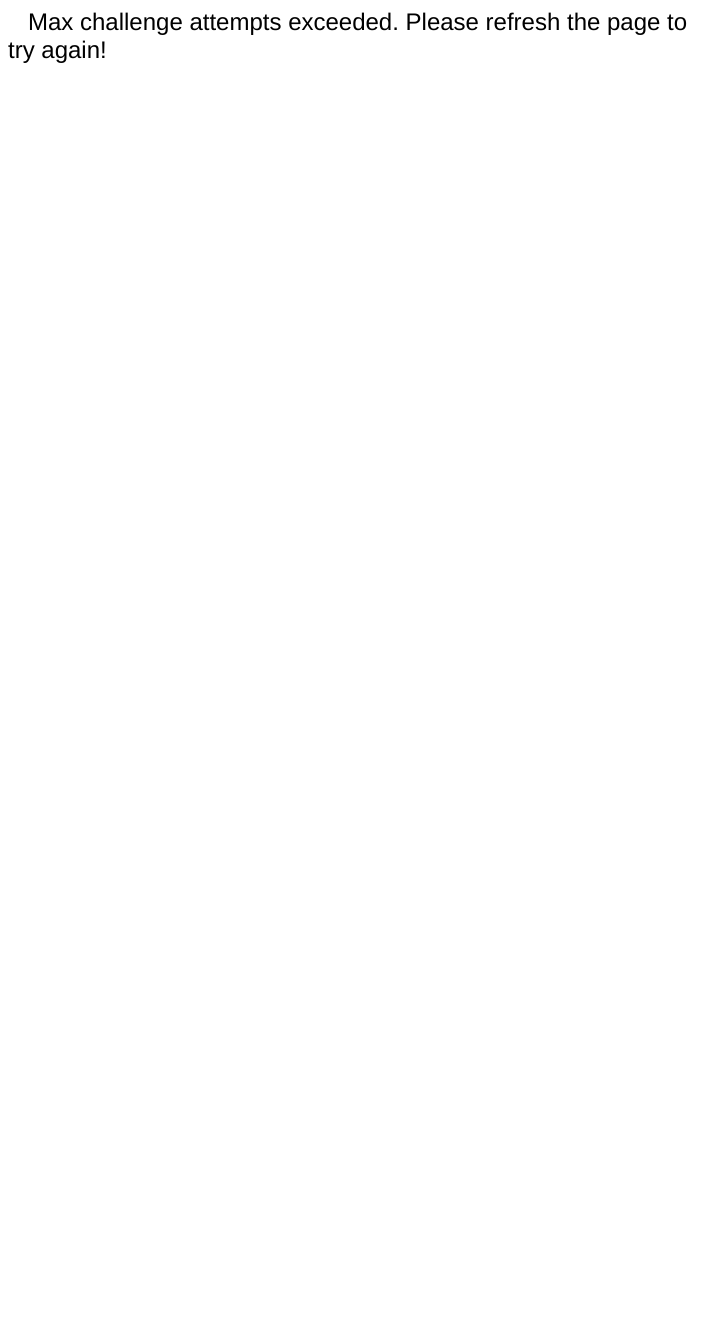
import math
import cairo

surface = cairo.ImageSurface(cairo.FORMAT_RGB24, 725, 1323)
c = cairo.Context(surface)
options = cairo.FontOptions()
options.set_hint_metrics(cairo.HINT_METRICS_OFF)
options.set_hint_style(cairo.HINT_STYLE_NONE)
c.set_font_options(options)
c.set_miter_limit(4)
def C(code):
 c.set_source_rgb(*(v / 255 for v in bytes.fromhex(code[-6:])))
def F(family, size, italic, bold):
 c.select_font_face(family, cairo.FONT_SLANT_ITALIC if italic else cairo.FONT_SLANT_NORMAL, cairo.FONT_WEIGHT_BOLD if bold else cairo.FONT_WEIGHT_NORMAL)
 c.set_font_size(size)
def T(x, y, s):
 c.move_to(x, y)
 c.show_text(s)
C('ffffff')
c.paint()
F('Liberation Sans',24,0,0)
C('000000')
T(28,30,'Max challenge attempts exceeded. Please refresh the page to')
T(8,58,'try again!')
surface.write_to_png('o.png')
